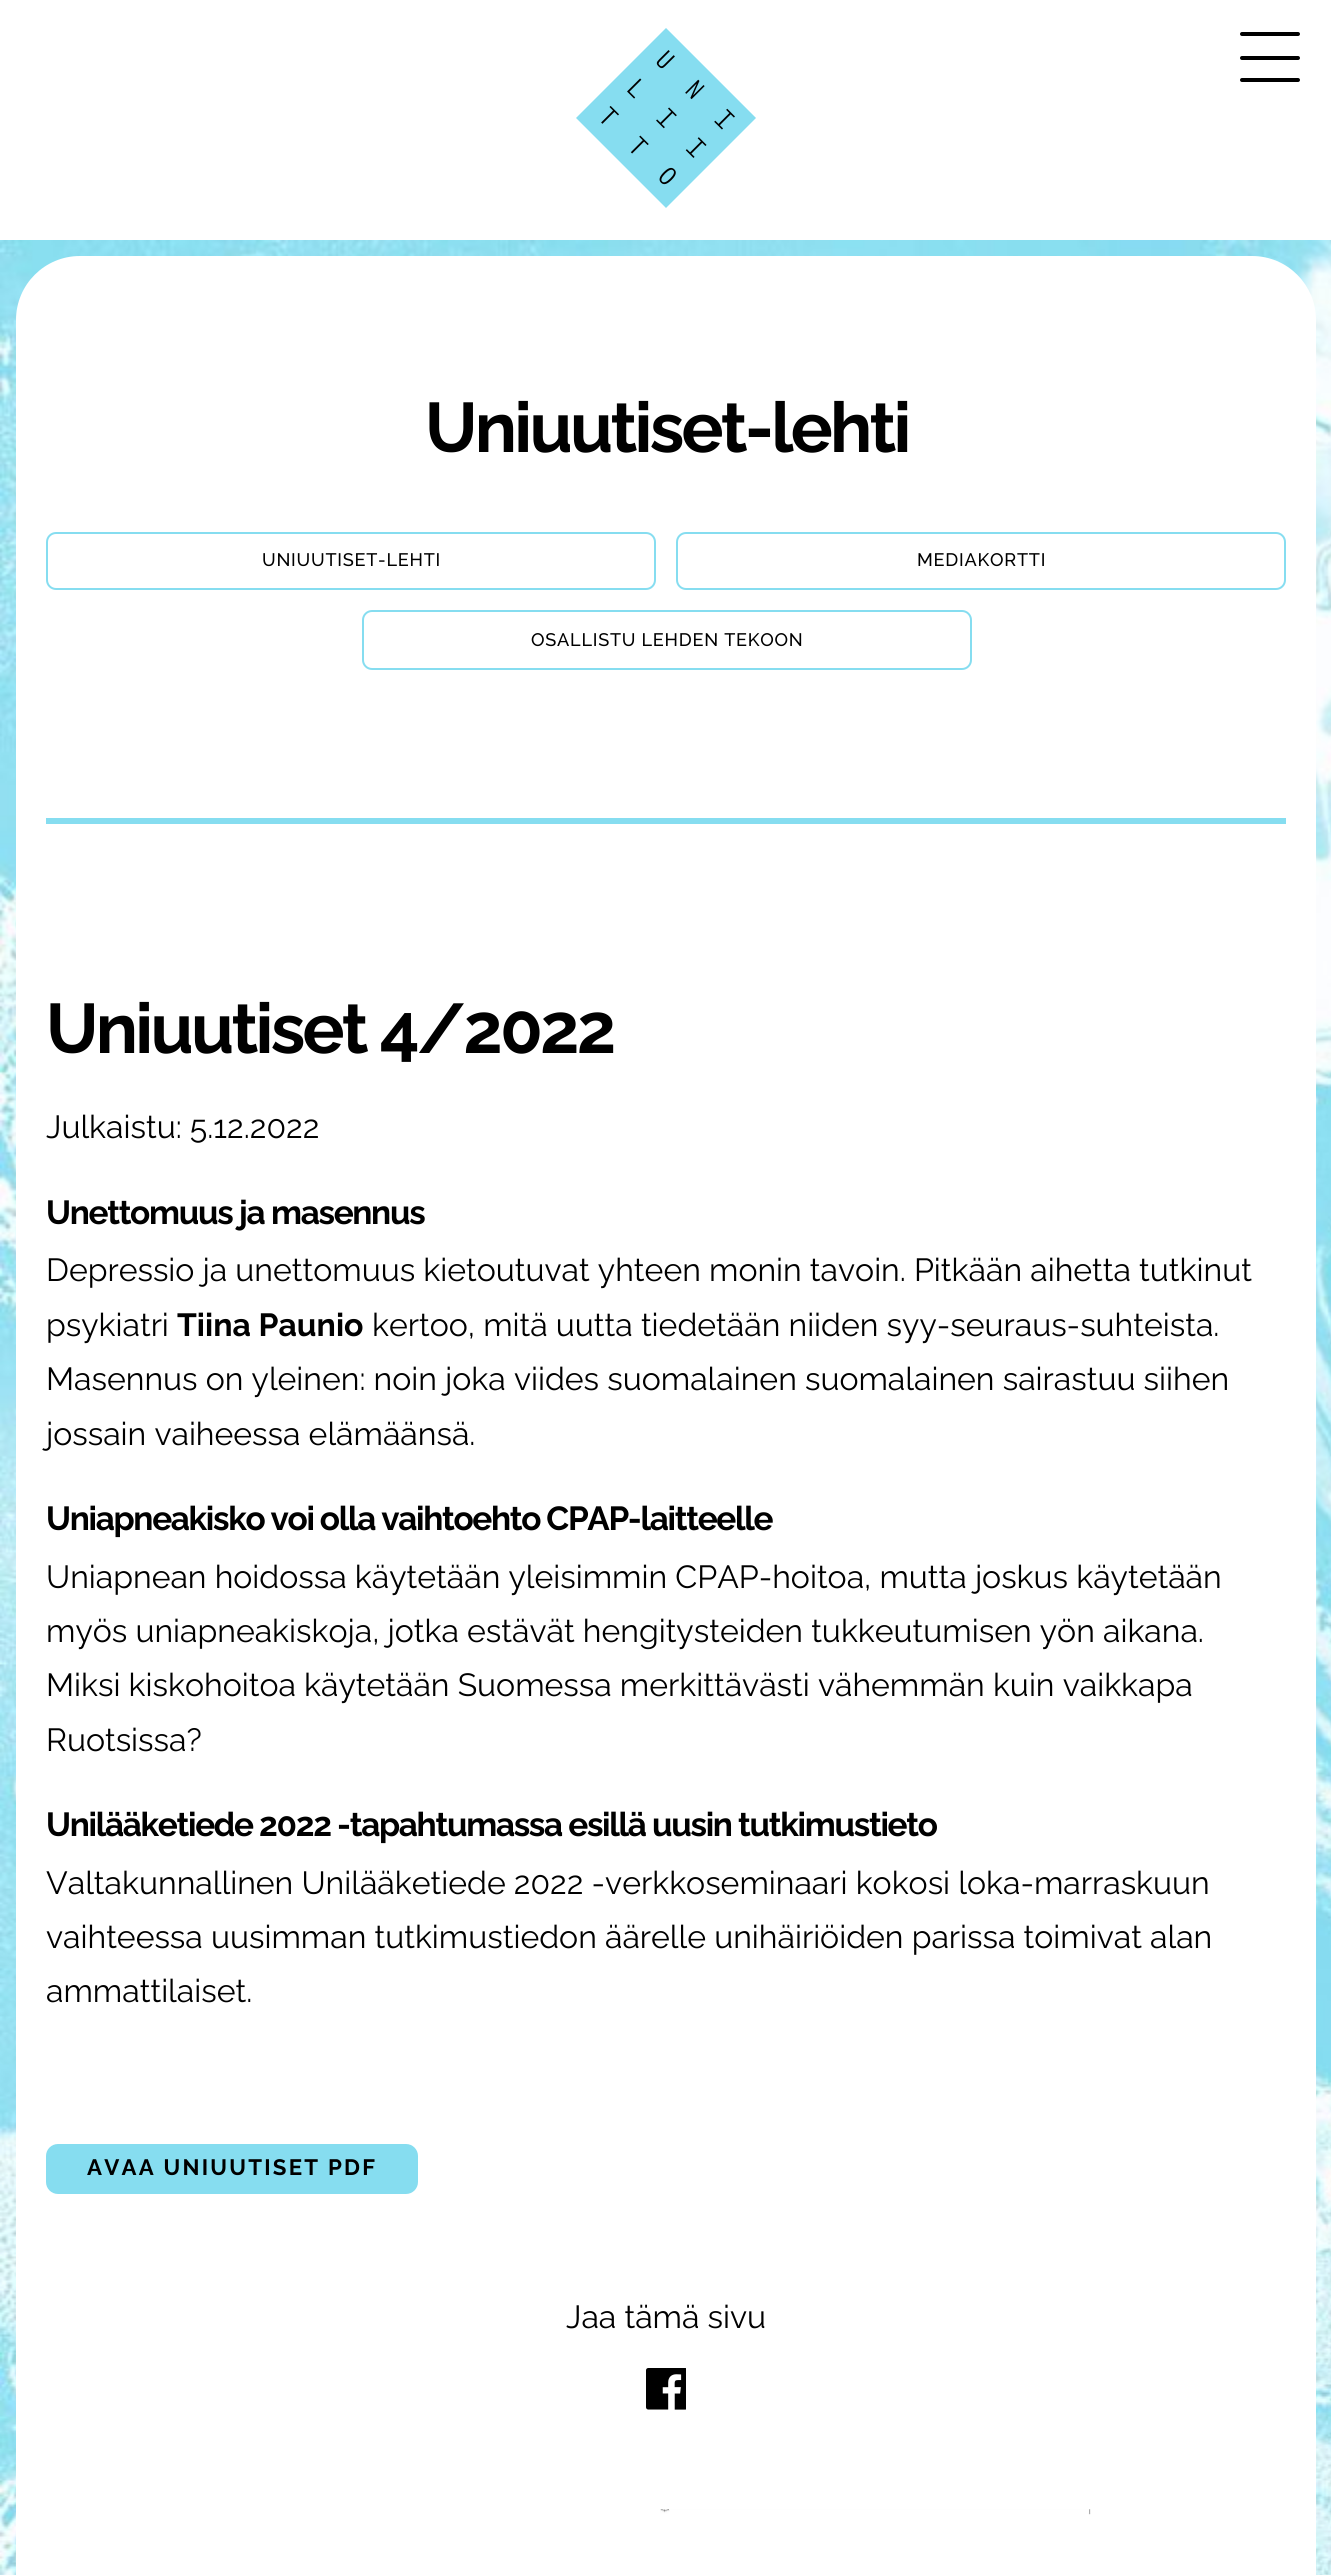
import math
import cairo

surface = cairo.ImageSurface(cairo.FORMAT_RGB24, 1331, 2575)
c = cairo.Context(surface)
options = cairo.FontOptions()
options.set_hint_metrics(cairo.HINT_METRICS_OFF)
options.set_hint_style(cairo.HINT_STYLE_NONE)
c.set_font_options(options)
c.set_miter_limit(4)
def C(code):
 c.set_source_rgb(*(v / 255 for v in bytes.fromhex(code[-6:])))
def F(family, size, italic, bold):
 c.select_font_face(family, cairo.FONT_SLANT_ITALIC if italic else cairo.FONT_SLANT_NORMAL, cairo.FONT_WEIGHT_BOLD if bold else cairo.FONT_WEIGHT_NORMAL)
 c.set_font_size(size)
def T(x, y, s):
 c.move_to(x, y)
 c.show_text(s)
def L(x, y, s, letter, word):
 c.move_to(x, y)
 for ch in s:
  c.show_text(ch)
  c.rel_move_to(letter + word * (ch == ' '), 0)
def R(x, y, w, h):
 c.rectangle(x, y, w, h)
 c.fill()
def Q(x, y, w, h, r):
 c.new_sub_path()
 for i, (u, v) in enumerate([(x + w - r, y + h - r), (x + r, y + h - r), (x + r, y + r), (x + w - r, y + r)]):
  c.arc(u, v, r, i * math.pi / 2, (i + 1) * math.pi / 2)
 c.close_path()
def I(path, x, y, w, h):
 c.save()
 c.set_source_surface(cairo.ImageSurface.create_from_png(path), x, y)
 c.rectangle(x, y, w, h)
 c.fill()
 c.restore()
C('ffffff')
c.paint()
I('1.png',576,28,180,180)
C('000000')
Q(1240,32,60,4,2)
c.fill()
Q(1240,56,60,4,2)
c.fill()
Q(1240,78,60,4,2)
c.fill()
I('2.png',0,240,1331,2335)
C('ffffff')
Q(16,256,1300,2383,64)
c.fill()
F('Raleway',70,0,1)
C('000000')
L(425,452,'Uniuutiset-lehti',-2.75,0)
Q(47,533,608,56,9)
C('86ddf0')
c.stroke()
F('Raleway Medium',18.1,0,0)
C('000000')
L(262,566,'UNIUUTISET-LEHTI',.75,0)
Q(677,533,608,56,9)
C('86ddf0')
c.stroke()
C('000000')
L(917,566,'MEDIAKORTTI',.75,0)
Q(363,611,608,58,9)
C('86ddf0')
c.stroke()
C('000000')
L(531,646,'OSALLISTU LEHDEN TEKOON',.75,0)
C('86ddf0')
R(46,818,1240,6)
F('Raleway',70,0,1)
C('000000')
L(46,1053,'Uniuutiset 4/2022',-2.75,0)
F('Raleway',32,0,0)
T(46,1138,'Julkaistu: 5.12.2022')
F('Raleway',33.35,0,1)
L(46,1224,'Unettomuus ja masennus',-1.33,0)
F('Raleway',32,0,0)
T(46,1281,'Depressio ja unettomuus kietoutuvat yhteen monin tavoin. Pitkään aihetta tutkinut')
T(46,1336,'psykiatri')
F('Raleway',32,0,1)
T(177,1336,'Tiina Paunio')
F('Raleway',32,0,0)
T(372,1336,'kertoo, mitä uutta tiedetään niiden syy-seuraus-suhteista.')
T(46,1390,'Masennus on yleinen: noin joka viides suomalainen suomalainen sairastuu siihen')
T(46,1445,'jossain vaiheessa elämäänsä.')
F('Raleway',33.35,0,1)
L(46,1530,'Uniapneakisko voi olla vaihtoehto CPAP-laitteelle',-1.33,-.5)
F('Raleway',32,0,0)
T(46,1588,'Uniapnean hoidossa käytetään yleisimmin CPAP-hoitoa, mutta joskus käytetään')
T(46,1642,'myös uniapneakiskoja, jotka estävät hengitysteiden tukkeutumisen yön aikana.')
T(46,1696,'Miksi kiskohoitoa käytetään Suomessa merkittävästi vähemmän kuin vaikkapa')
T(46,1751,'Ruotsissa?')
F('Raleway',33.35,0,1)
L(46,1836,'Unilääketiede 2022 -tapahtumassa esillä uusin tutkimustieto',-1.33,-.25)
F('Raleway',32,0,0)
T(46,1894,'Valtakunnallinen Unilääketiede 2022 -verkkoseminaari kokosi loka-marraskuun')
T(46,1948,'vaihteessa uusimman tutkimustiedon äärelle unihäiriöiden parissa toimivat alan')
T(46,2002,'ammattilaiset.')
C('86ddf0')
Q(46,2144,372,50,12)
c.fill()
F('Raleway',22.25,0,1)
C('000000')
L(87,2175,'AVAA UNIUUTISET PDF',2.25,0)
F('Raleway',32,0,0)
T(566,2328,'Jaa tämä sivu')
I('3.png',646,2368,40,42)
I('4.png',660,2509,431,6)
surface.write_to_png('o.png')
